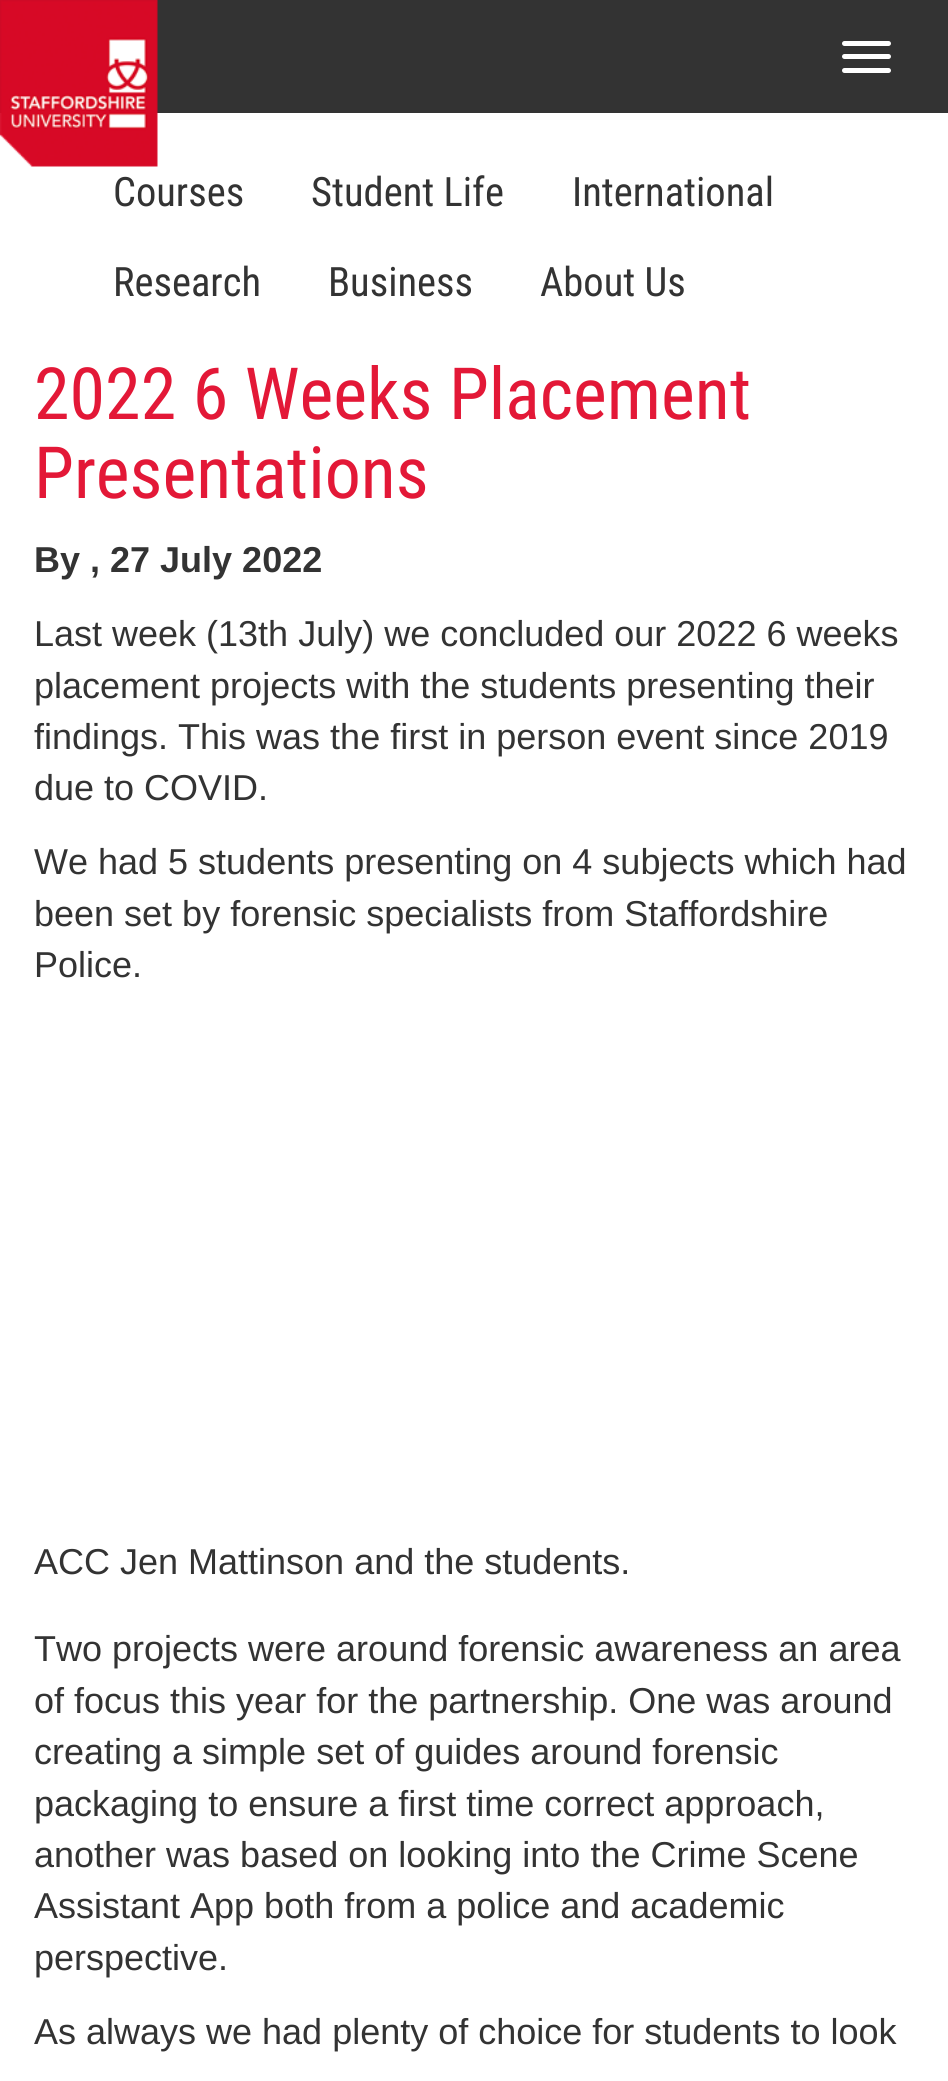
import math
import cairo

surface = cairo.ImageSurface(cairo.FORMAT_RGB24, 948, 2081)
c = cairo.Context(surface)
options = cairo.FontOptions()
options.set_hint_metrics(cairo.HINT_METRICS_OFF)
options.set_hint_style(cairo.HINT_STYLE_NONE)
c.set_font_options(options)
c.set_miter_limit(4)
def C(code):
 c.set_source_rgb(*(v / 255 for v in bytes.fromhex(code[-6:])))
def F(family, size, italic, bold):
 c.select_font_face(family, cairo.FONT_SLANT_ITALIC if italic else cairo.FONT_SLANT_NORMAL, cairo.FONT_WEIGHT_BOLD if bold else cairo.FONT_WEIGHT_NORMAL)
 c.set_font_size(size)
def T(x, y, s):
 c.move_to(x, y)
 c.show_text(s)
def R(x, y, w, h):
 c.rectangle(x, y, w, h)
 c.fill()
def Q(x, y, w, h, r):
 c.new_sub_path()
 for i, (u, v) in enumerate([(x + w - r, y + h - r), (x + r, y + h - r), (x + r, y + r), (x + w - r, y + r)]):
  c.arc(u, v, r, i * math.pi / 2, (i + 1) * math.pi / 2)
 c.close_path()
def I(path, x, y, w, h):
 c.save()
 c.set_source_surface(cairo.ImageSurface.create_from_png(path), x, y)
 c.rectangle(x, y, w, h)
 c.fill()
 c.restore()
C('ffffff')
c.paint()
C('333333')
R(0,0,948,113)
I('1.png',0,0,158,167)
C('ffffff')
Q(842,41,49,5,2.5)
c.fill()
Q(842,54,49,5,2.5)
c.fill()
Q(842,68,49,5,2.5)
c.fill()
F('Roboto Condensed',40.5,0,0)
C('333333')
T(113,206,'Courses')
T(311,206,'Student Life')
T(572,206,'International')
T(113,296,'Research')
T(328,296,'Business')
T(540,296,'About Us')
F('Roboto Condensed',72,0,0)
C('e31837')
T(34,419,'2022 6 Weeks Placement')
T(34,498,'Presentations')
F('Liberation Sans',36,0,1)
C('333333')
T(34,572,'By , 27 July 2022')
F('Liberation Sans',36,0,0)
T(34,646,'Last week (13th July) we concluded our 2022 6 weeks')
T(34,698,'placement projects with the students presenting their')
T(34,749,'findings. This was the first in person event since 2019')
T(34,800,'due to COVID.')
T(34,874,'We had 5 students presenting on 4 subjects which had')
T(34,926,'been set by forensic specialists from Staffordshire')
T(34,977,'Police.')
T(34,1574,'ACC Jen Mattinson and the students.')
T(34,1661,'Two projects were around forensic awareness an area')
T(34,1713,'of focus this year for the partnership. One was around')
T(34,1764,'creating a simple set of guides around forensic')
T(34,1816,'packaging to ensure a first time correct approach,')
T(34,1867,'another was based on looking into the Crime Scene')
T(34,1918,'Assistant App both from a police and academic')
T(34,1970,'perspective.')
T(34,2044,'As always we had plenty of choice for students to look')
surface.write_to_png('o.png')
